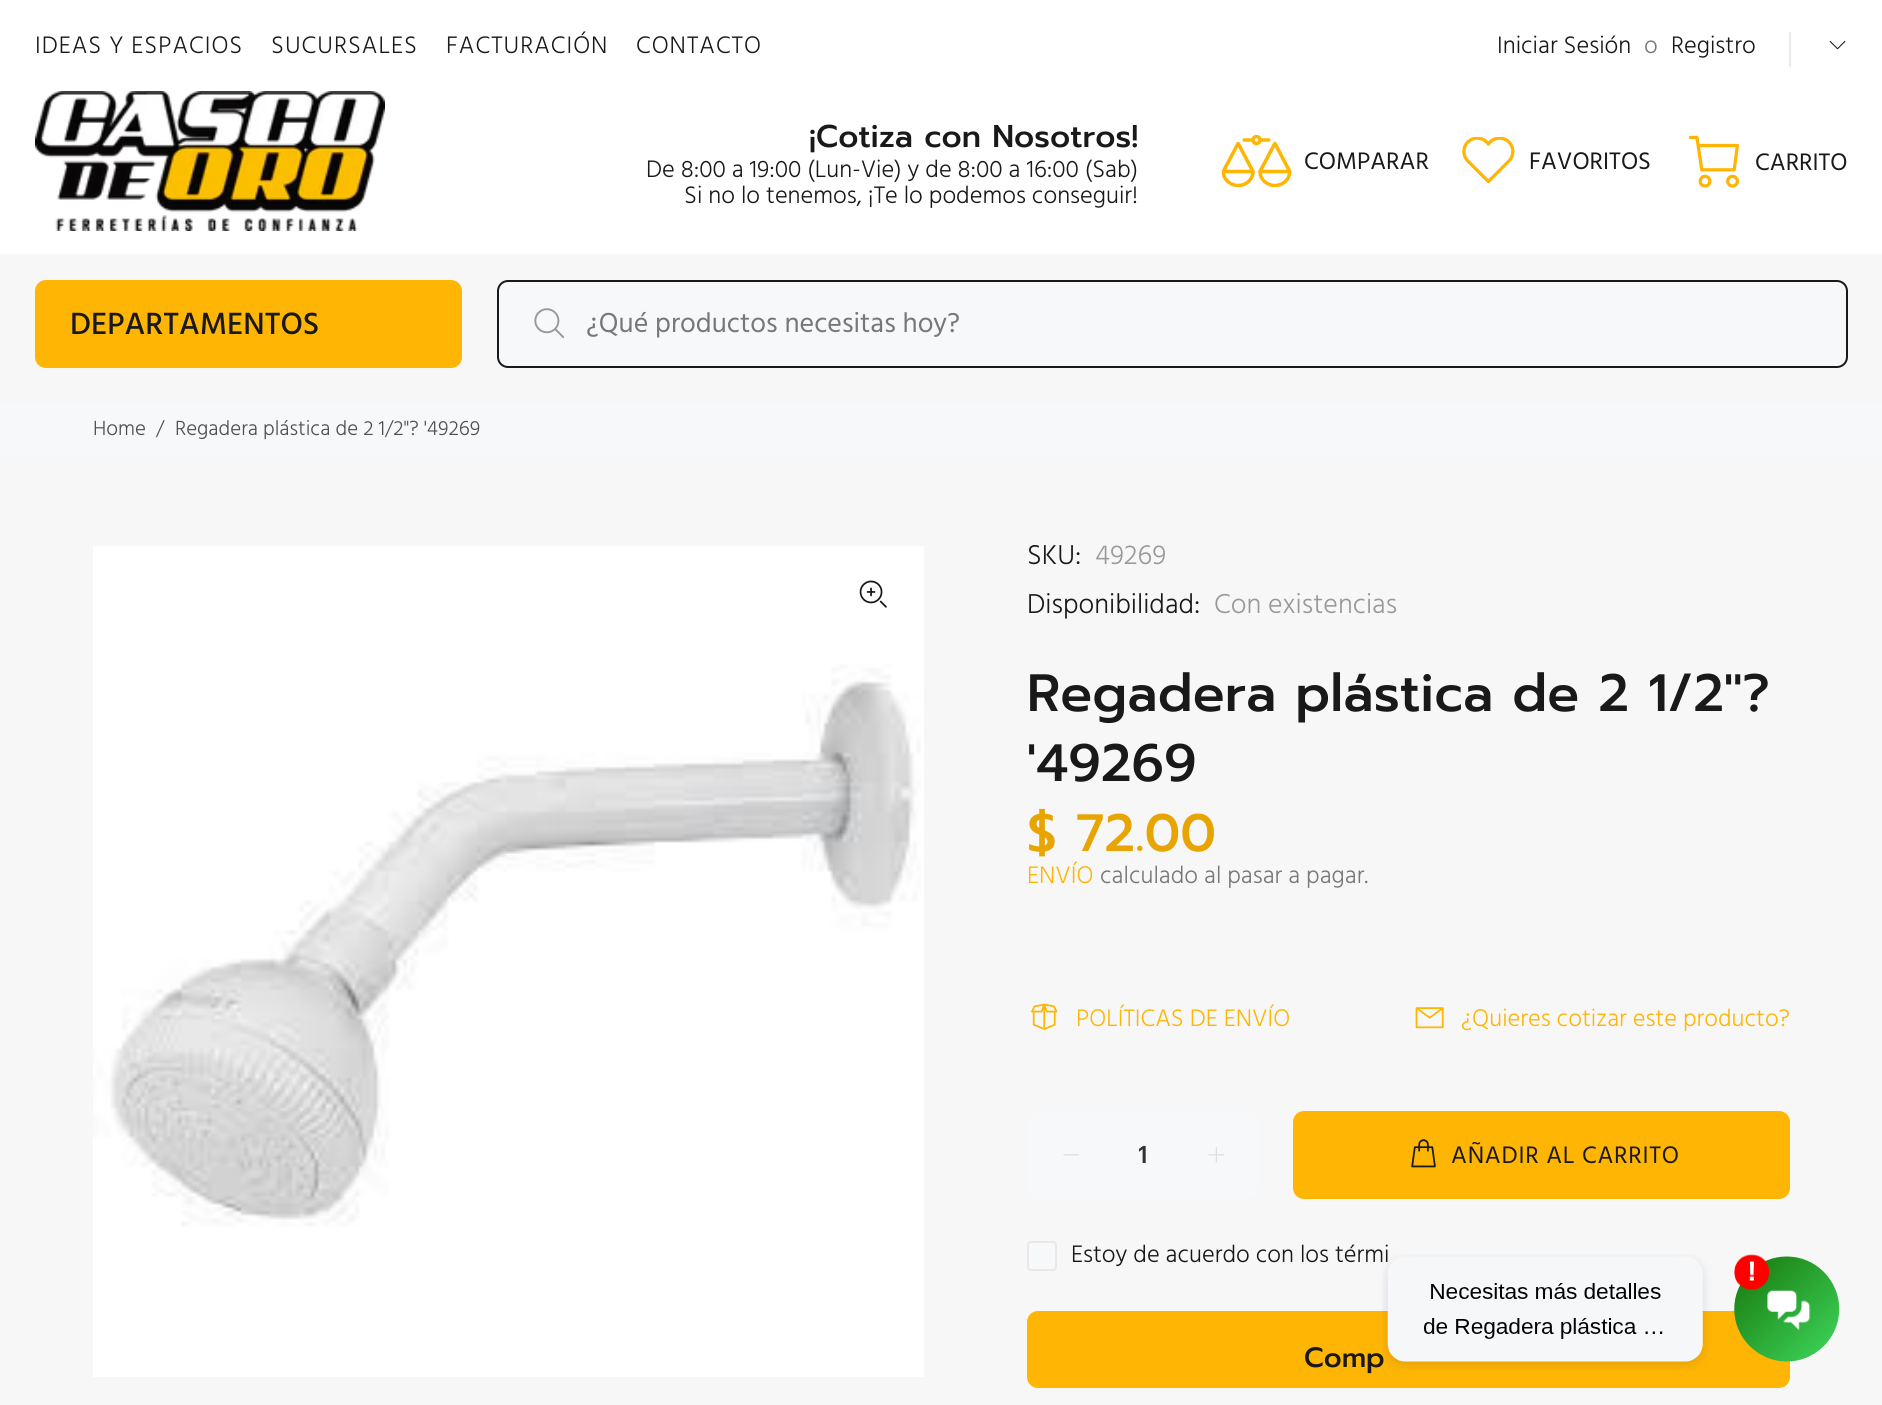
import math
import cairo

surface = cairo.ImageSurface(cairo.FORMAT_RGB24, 1882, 1405)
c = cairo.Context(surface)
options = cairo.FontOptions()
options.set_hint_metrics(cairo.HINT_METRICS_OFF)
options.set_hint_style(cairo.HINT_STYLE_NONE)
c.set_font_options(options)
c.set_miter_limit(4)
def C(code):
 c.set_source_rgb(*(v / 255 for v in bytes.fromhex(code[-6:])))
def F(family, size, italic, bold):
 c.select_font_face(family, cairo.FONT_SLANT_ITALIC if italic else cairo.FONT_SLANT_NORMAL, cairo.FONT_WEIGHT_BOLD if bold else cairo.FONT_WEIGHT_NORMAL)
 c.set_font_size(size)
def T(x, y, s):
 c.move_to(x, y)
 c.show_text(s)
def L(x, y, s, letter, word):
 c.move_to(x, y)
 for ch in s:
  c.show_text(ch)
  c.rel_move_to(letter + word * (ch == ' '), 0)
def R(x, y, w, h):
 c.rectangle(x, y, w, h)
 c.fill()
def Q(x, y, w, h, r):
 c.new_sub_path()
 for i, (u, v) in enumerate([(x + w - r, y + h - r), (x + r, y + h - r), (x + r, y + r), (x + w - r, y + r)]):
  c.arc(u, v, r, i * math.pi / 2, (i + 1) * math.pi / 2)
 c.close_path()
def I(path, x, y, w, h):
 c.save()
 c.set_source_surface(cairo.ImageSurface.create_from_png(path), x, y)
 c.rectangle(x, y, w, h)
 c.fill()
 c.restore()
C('f7f7f7')
c.paint()
C('ffffff')
R(0,0,1882,254)
F('Hind Light',24.5,0,0)
C('191919')
L(35,53,'IDEAS Y ESPACIOS',1,0)
L(271,53,'SUCURSALES',1,0)
L(446,53,'FACTURACIÓN',1,0)
L(636,53,'CONTACTO',1,0)
T(1497,53,'Iniciar Sesión')
C('777777')
T(1644,53,'o')
C('191919')
T(1671,53,'Registro')
C('e7e9e8')
R(1789,32,2,35)
I('1.png',1829,40,17,10)
I('2.png',35,91,350,140)
F('Prompt Medium',31.5,0,0)
C('191919')
T(809,147,'¡Cotiza con Nosotros!')
F('Hind Light',24.5,0,0)
T(646,177,'De 8:00 a 19:00 (Lun-Vie) y de 8:00 a 16:00 (Sab)')
T(684,203,'Si no lo tenemos, ¡Te lo podemos conseguir!')
I('3.png',1222,135,70,52)
F('Hind',24.5,0,0)
T(1304,169,'COMPARAR')
I('4.png',1462,137,53,47)
T(1529,169,'FAVORITOS')
I('5.png',1688,135,52,53)
T(1755,170,'CARRITO')
C('ffb503')
Q(35,280,427,88,11)
c.fill()
F('Hind Medium',31.5,0,0)
C('191919')
T(70,334,'DEPARTAMENTOS')
C('f7f8fa')
Q(498,281,1349,86,10)
c.fill_preserve()
C('191919')
c.stroke()
I('6.png',534,308,31,30)
F('Hind',28,0,0)
C('777777')
T(586,332,'¿Qué productos necesitas hoy?')
C('f7f8fa')
R(0,403,1882,52)
F('Hind Light',21,0,0)
C('4f4f4f')
T(93,435,'Home')
T(156,435,'/')
T(175,435,'Regadera plástica de 2 1/2"? \'49269')
I('7.png',93,546,831,831)
I('8.png',859,580,28,28)
F('Hind Light',28,0,0)
C('191919')
T(1027,564,'SKU:')
C('999999')
T(1095,564,'49269')
C('191919')
T(1027,613,'Disponibilidad:')
C('999999')
T(1214,613,'Con existencias')
F('Prompt Medium',52.5,0,0)
C('191919')
L(1027,711,'Regadera plástica de 2 1/2"?',.05,0)
L(1027,781,'\'49269',.05,0)
C('e8a400')
T(1027,851,'$ 72.00')
F('Hind Light',24.5,0,0)
C('ffb503')
T(1027,883,'ENVÍO')
C('777777')
T(1100,883,'calculado al pasar a pagar.')
I('9.png',1031,1003,27,27)
C('ffb503')
T(1076,1026,'POLÍTICAS DE ENVÍO')
I('10.png',1415,1007,29,22)
T(1461,1026,'¿Quieres cotizar este producto?')
C('f7f8fa')
Q(1027,1111,231,88,11)
c.fill()
I('11.png',1063,1154,16,2)
F('Prompt Medium',24.5,0,0)
C('333333')
T(1138,1163,'1')
I('12.png',1208,1147,16,16)
C('ffb503')
Q(1293,1111,497,88,11)
c.fill()
I('13.png',1411,1139,25,29)
F('Hind',24.5,0,0)
C('191919')
L(1451,1163,'AÑADIR AL CARRITO',.75,0)
C('f7f8fa')
Q(1028,1242,28,28,3)
c.fill_preserve()
C('e9e7e7')
c.stroke()
F('Hind Light',24.5,0,0)
C('191919')
T(1071,1262,'Estoy de acuerdo con los térmi')
C('ffb503')
Q(1027,1311,763,77,11)
c.fill()
F('Prompt Medium',28,0,0)
C('191919')
T(1304,1367,'Comp')
I('14.png',1382,1254,458,116)
surface.write_to_png('o.png')
